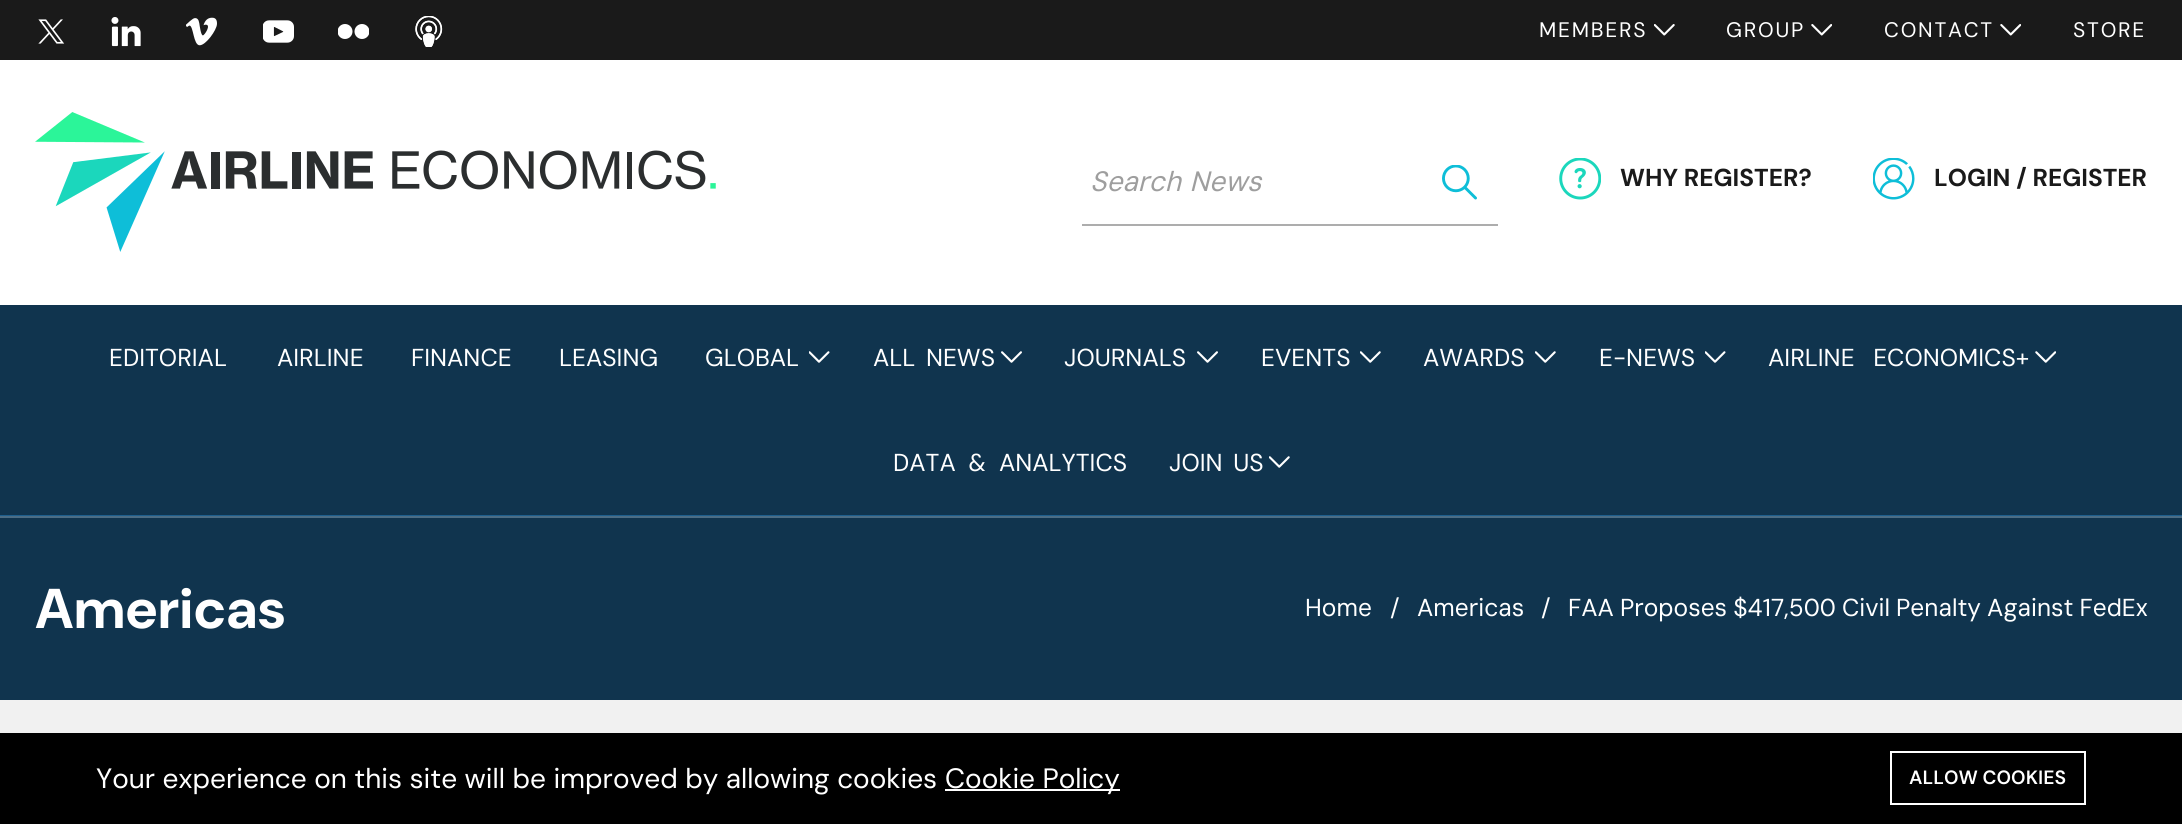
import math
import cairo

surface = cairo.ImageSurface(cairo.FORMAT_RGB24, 2182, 824)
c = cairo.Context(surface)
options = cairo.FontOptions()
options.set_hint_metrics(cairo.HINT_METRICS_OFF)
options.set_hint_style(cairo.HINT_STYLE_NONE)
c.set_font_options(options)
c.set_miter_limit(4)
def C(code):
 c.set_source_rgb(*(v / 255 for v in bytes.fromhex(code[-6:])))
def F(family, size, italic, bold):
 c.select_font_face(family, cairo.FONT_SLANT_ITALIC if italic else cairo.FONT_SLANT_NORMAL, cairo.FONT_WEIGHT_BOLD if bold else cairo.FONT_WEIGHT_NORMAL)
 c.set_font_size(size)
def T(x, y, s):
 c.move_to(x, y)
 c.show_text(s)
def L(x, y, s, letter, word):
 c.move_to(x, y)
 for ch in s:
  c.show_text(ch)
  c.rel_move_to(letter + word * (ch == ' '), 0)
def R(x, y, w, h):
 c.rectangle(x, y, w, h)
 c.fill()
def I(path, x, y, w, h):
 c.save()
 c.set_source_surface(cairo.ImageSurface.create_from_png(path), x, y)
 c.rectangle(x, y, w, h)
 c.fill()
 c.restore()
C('ffffff')
c.paint()
C('1a1a1a')
R(0,0,2182,60)
I('1.png',38,19,27,25)
I('2.png',111,17,30,30)
I('3.png',186,17,31,29)
I('4.png',263,20,31,23)
c.save()
c.rectangle(338,16,31,31)
c.clip()
C('ffffff')
c.arc(345,31.5,7.5,0,2 * math.pi)
c.fill()
c.arc(362,31.5,7.5,0,2 * math.pi)
c.fill()
c.restore()
I('5.png',415,16,28,31)
I('6.png',1654,24,21,12)
F('DM Sans',21,0,0)
C('ffffff')
L(1539,37,'MEMBERS',1.75,0)
I('7.png',1811,24,21,12)
L(1726,37,'GROUP',1.75,0)
I('7.png',2000,24,21,12)
L(1884,37,'CONTACT',1.75,0)
L(2073,37,'STORE',1.75,0)
I('8.png',35,112,681,140)
C('adadad')
R(1082,224,416,2)
F('DM Sans',28,1,0)
C('9e9e9e')
L(1090,191,'Search News',0,1)
I('9.png',1442,165,35,35)
I('10.png',1559,158,42,42)
F('DM Sans',24.5,0,1)
C('1a1a1a')
T(1620,186,'WHY REGISTER?')
I('11.png',1873,158,42,42)
T(1934,186,'LOGIN / REGISTER')
C('10344e')
R(0,305,2182,210)
C('1d5e8d')
R(0,515,2182,1)
F('DM Sans',24.5,0,0)
C('ffffff')
T(109,366,'EDITORIAL')
T(277,366,'AIRLINE')
T(411,366,'FINANCE')
T(559,366,'LEASING')
I('12.png',809,351,21,12)
T(705,366,'GLOBAL')
I('13.png',1001,351,21,12)
L(873,366,'ALL NEWS',0,4)
I('13.png',1197,351,21,12)
T(1064,366,'JOURNALS')
I('14.png',1360,351,21,12)
T(1261,366,'EVENTS')
I('14.png',1535,351,21,12)
T(1423,366,'AWARDS')
I('12.png',1705,351,21,12)
T(1599,366,'E-NEWS')
I('15.png',2035,351,21,12)
L(1768,366,'AIRLINE ECONOMICS+',0,12)
L(893,471,'DATA & ANALYTICS',0,6)
I('14.png',1269,456,21,12)
L(1169,471,'JOIN US',0,4)
C('f1f1f1')
R(0,700,2182,33)
C('10344e')
R(0,518,2182,182)
C('4c6d85')
R(0,516,2182,2)
F('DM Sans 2',56,0,1)
C('ffffff')
T(35,628,'Americas')
F('DM Sans',24.5,0,0)
T(1305,616,'Home')
T(1390,616,'/')
T(1417,616,'Americas')
T(1541,616,'/')
L(1568,616,'FAA Proposes $417,500 Civil Penalty Against FedEx',0,-.5)
C('000000')
R(0,733,2182,91)
F('DM Sans 2',28,0,0)
C('ffffff')
T(96,788,'Your experience on this site will be improved by allowing cookies')
R(945,789,175,2)
T(945,788,'Cookie Policy')
c.rectangle(1891,752,194,52)
c.stroke()
F('DM Sans SemiBold',19.25,0,0)
T(1909,784,'ALLOW COOKIES')
surface.write_to_png('o.png')
